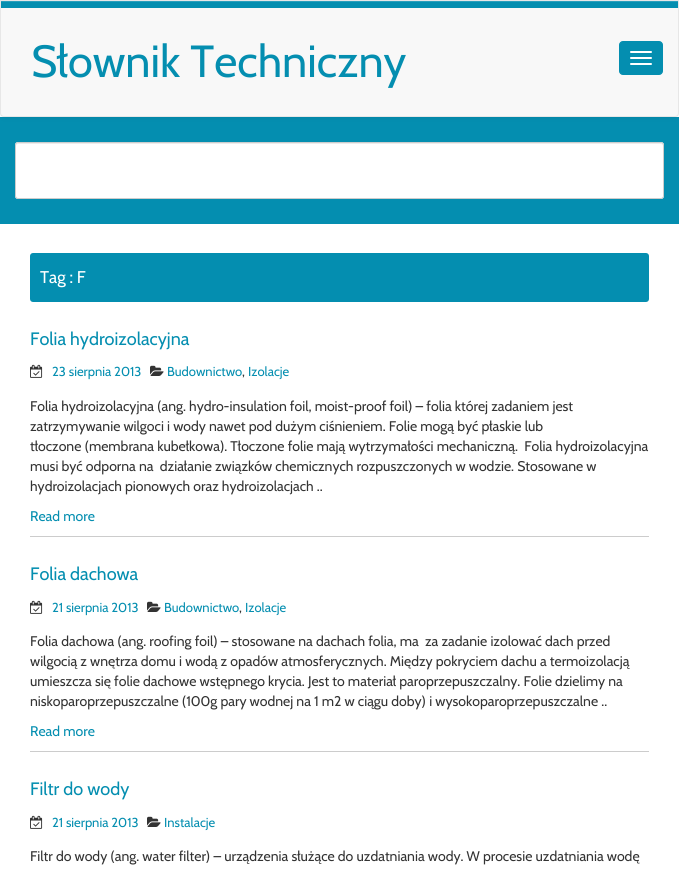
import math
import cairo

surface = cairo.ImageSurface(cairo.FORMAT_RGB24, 679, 874)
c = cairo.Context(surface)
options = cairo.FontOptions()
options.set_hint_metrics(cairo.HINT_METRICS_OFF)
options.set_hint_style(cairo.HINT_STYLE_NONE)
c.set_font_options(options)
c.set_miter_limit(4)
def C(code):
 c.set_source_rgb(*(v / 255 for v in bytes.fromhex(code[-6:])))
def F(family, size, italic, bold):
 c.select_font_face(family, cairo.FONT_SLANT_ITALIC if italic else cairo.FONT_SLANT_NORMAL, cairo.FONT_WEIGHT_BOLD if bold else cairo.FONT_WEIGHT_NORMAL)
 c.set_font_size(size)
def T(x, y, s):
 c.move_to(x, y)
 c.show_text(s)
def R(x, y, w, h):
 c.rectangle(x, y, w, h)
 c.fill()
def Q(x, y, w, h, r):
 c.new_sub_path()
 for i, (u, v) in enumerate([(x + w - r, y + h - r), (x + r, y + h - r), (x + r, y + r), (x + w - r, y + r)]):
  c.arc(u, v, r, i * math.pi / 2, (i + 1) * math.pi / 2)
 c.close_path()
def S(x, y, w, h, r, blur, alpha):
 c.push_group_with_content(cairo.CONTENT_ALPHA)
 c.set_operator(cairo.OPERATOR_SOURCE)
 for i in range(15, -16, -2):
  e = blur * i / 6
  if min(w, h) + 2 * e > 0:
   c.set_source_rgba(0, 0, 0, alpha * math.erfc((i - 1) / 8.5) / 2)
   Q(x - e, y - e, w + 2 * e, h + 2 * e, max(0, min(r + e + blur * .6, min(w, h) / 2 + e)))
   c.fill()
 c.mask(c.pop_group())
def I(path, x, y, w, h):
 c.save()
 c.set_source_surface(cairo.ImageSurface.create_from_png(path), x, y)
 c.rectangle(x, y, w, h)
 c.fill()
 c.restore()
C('ffffff')
c.paint()
C('048eb0')
R(0,117,679,107)
C('000000')
S(0,1,679,117,4,2.5,.07)
C('f8f8f8')
c.new_path()
c.move_to(0,0)
c.line_to(679,0)
c.line_to(679,113)
c.curve_to(679,115,677,117,675,117)
c.line_to(4,117)
c.curve_to(2,117,0,115,0,113)
c.close_path()
c.fill()
C('048eb0')
R(0,2,679,6)
C('2a9fbc')
R(1,1,677,1)
c.new_path()
c.move_to(.5,.5)
c.line_to(678.5,.5)
c.line_to(678.5,113)
c.curve_to(678.5,115,677,116.5,675,116.5)
c.line_to(4,116.5)
c.curve_to(2,116.5,.5,115,.5,113)
c.close_path()
C('e7e7e7')
c.set_line_width(1)
c.stroke()
F('Cabin',45,0,0)
C('048eb0')
T(31,77,'Słownik Techniczny')
Q(619.5,41.5,43,33,3.5)
c.fill_preserve()
c.stroke()
C('ffffff')
Q(630,51,22,2,1)
c.fill()
Q(630,57,22,2,1)
c.fill()
Q(630,63,22,2,1)
c.fill()
Q(15,142,649,57,3)
c.fill()
C('ececec')
c.new_path()
c.move_to(18,144)
c.line_to(661,144)
c.curve_to(662,144,663,145,663,146)
c.curve_to(663,145,663,143,661,143)
c.line_to(18,143)
c.curve_to(16,143,16,145,16,146)
c.curve_to(16,145,17,144,18,144)
c.close_path()
c.fill()
Q(15.5,142.5,648,56,2.5)
C('cccccc')
c.stroke()
C('048eb0')
Q(30,253,619,49,3)
c.fill()
F('Cabin',17,0,0)
C('ffffff')
T(40,283,'Tag : F')
C('cccccc')
R(30,536,619,1)
F('Cabin',18,0,0)
C('048eb0')
T(30,345,'Folia hydroizolacyjna')
I('1.png',30,364,13,14)
F('Cabin',13,0,0)
T(52,376,'23 sierpnia 2013')
I('2.png',150,365,14,11)
T(167,376,'Budownictwo')
C('333333')
T(242,376,',')
C('048eb0')
T(248,376,'Izolacje')
F('Cabin',14,0,0)
C('333333')
T(30,411,'Folia hydroizolacyjna (ang. hydro-insulation foil, moist-proof foil) – folia której zadaniem jest')
T(30,431,'zatrzymywanie wilgoci i wody nawet pod dużym ciśnieniem. Folie mogą być płaskie lub')
T(30,451,'tłoczone (membrana kubełkowa). Tłoczone folie mają wytrzymałości mechaniczną.  Folia hydroizolacyjna')
T(30,471,'musi być odporna na  działanie związków chemicznych rozpuszczonych w wodzie. Stosowane w')
T(30,491,'hydroizolacjach pionowych oraz hydroizolacjach ..')
C('048eb0')
T(30,521,'Read more')
C('cccccc')
R(30,751,619,1)
F('Cabin',18,0,0)
C('048eb0')
T(30,580,'Folia dachowa')
I('1.png',30,600,13,14)
F('Cabin',13,0,0)
T(52,612,'21 sierpnia 2013')
I('2.png',147,601,14,11)
T(164,612,'Budownictwo')
C('333333')
T(239,612,',')
C('048eb0')
T(245,612,'Izolacje')
F('Cabin',14,0,0)
C('333333')
T(30,646,'Folia dachowa (ang. roofing foil) – stosowane na dachach folia, ma  za zadanie izolować dach przed')
T(30,666,'wilgocią z wnętrza domu i wodą z opadów atmosferycznych. Między pokryciem dachu a termoizolacją')
T(30,686,'umieszcza się folie dachowe wstępnego krycia. Jest to materiał paroprzepuszczalny. Folie dzielimy na')
T(30,706,'niskoparoprzepuszczalne (100g pary wodnej na 1 m2 w ciągu doby) i wysokoparoprzepuszczalne ..')
C('048eb0')
T(30,736,'Read more')
F('Cabin',18,0,0)
T(30,795,'Filtr do wody')
I('1.png',30,815,13,14)
F('Cabin',13,0,0)
T(52,827,'21 sierpnia 2013')
I('2.png',147,816,14,11)
T(164,827,'Instalacje')
F('Cabin',14,0,0)
C('333333')
T(30,861,'Filtr do wody (ang. water filter) – urządzenia służące do uzdatniania wody. W procesie uzdatniania wodę')
surface.write_to_png('o.png')
